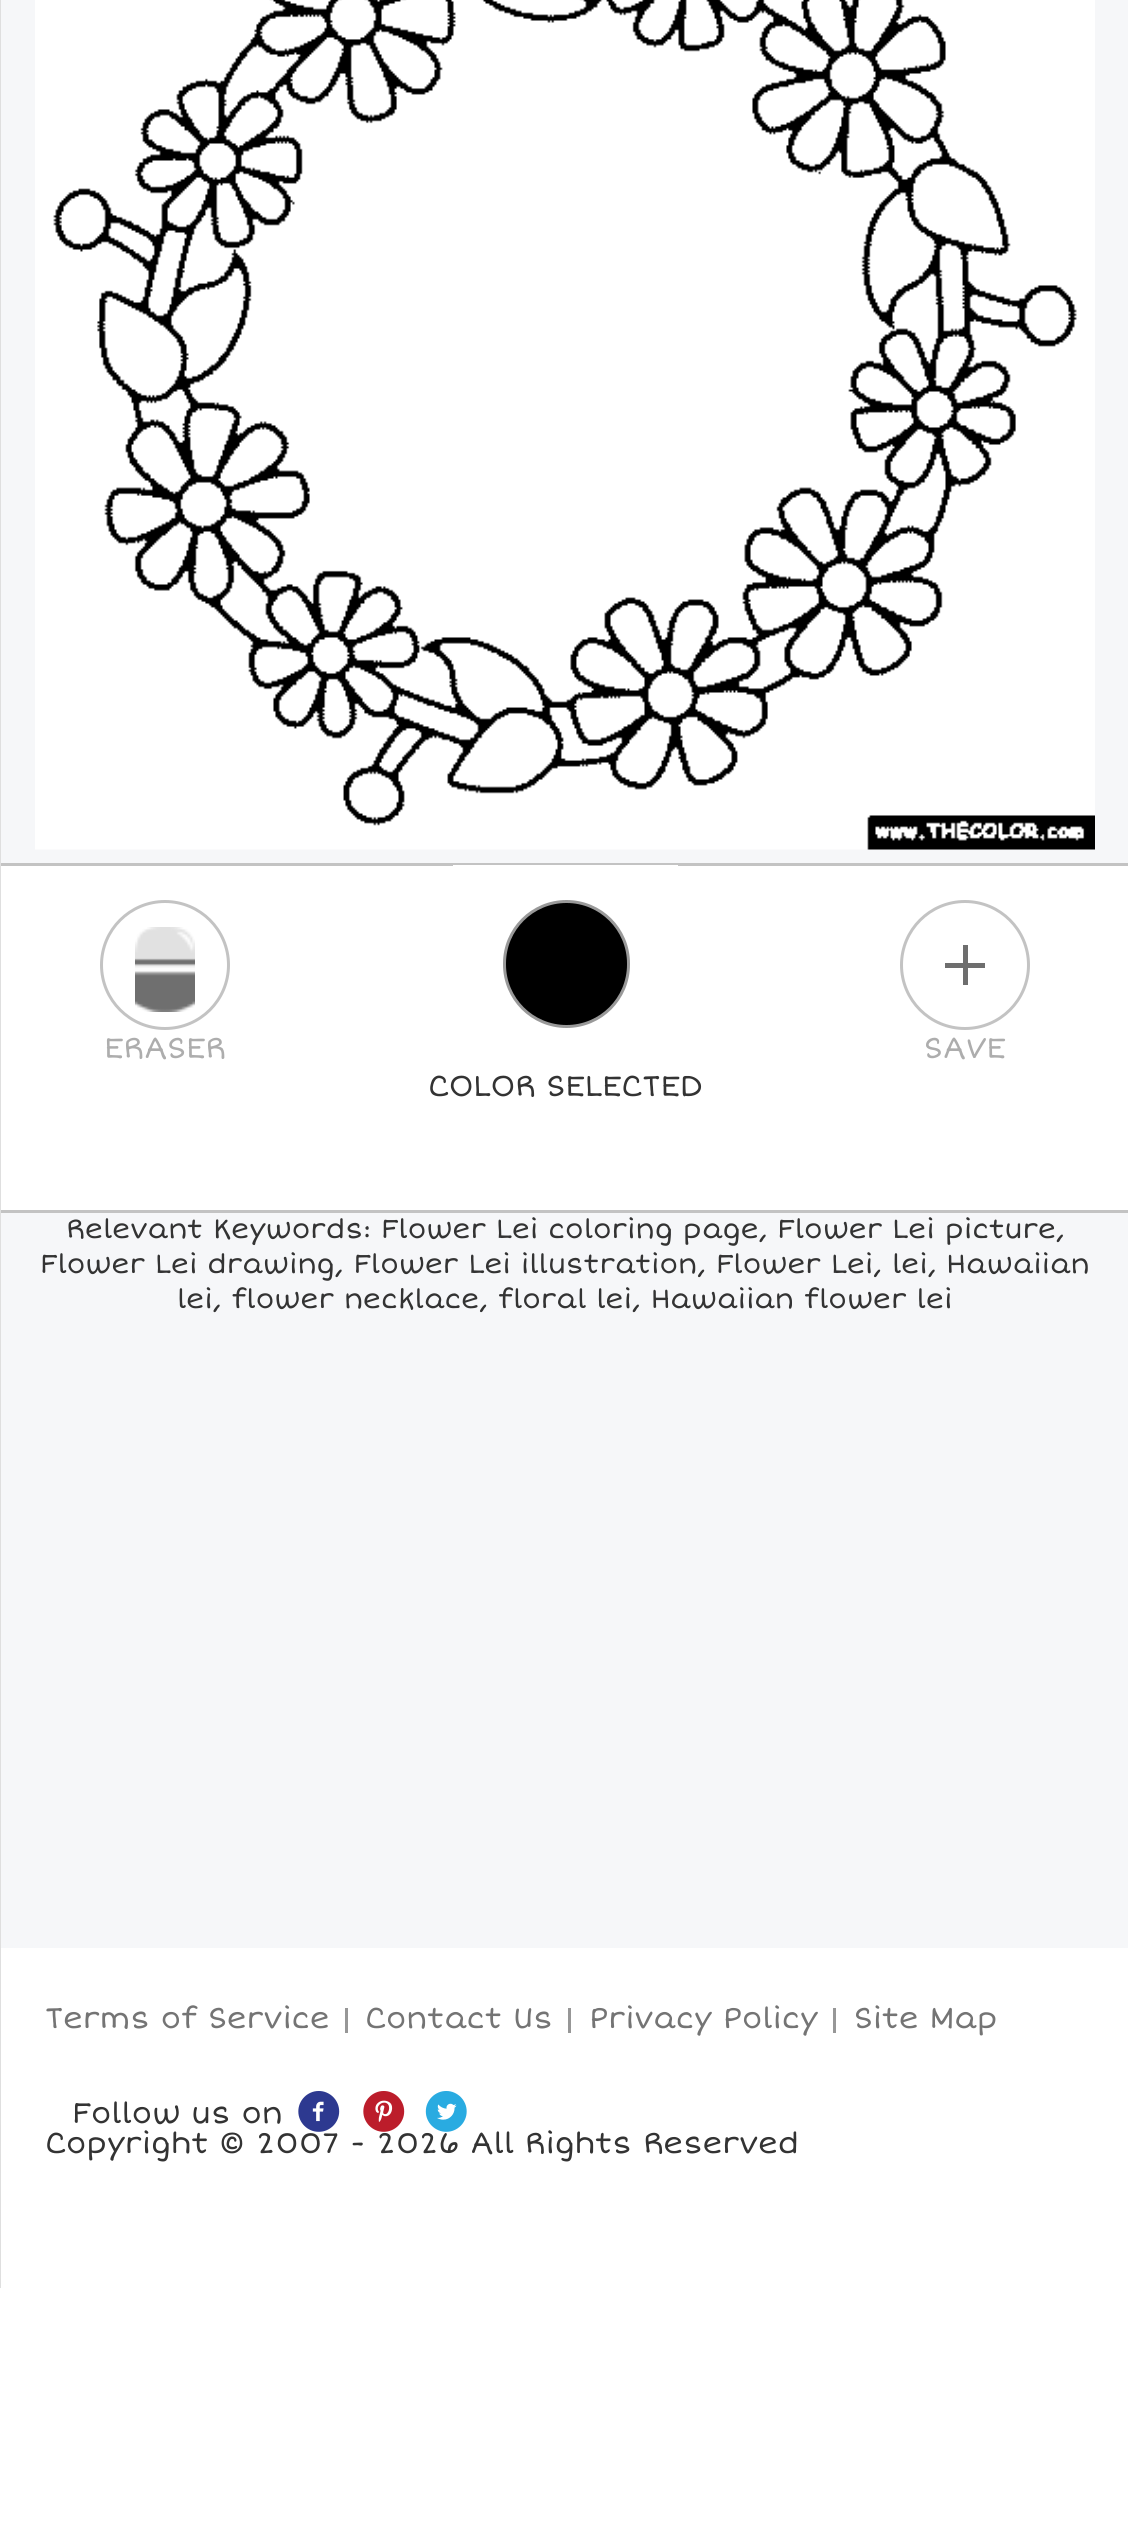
import math
import cairo

surface = cairo.ImageSurface(cairo.FORMAT_RGB24, 1128, 2536)
c = cairo.Context(surface)
options = cairo.FontOptions()
options.set_hint_metrics(cairo.HINT_METRICS_OFF)
options.set_hint_style(cairo.HINT_STYLE_NONE)
c.set_font_options(options)
c.set_miter_limit(4)
def C(code):
 c.set_source_rgb(*(v / 255 for v in bytes.fromhex(code[-6:])))
def F(family, size, italic, bold):
 c.select_font_face(family, cairo.FONT_SLANT_ITALIC if italic else cairo.FONT_SLANT_NORMAL, cairo.FONT_WEIGHT_BOLD if bold else cairo.FONT_WEIGHT_NORMAL)
 c.set_font_size(size)
def T(x, y, s):
 c.move_to(x, y)
 c.show_text(s)
def R(x, y, w, h):
 c.rectangle(x, y, w, h)
 c.fill()
def Q(x, y, w, h, r):
 c.new_sub_path()
 for i, (u, v) in enumerate([(x + w - r, y + h - r), (x + r, y + h - r), (x + r, y + r), (x + w - r, y + r)]):
  c.arc(u, v, r, i * math.pi / 2, (i + 1) * math.pi / 2)
 c.close_path()
def I(path, x, y, w, h):
 c.save()
 c.set_source_surface(cairo.ImageSurface.create_from_png(path), x, y)
 c.rectangle(x, y, w, h)
 c.fill()
 c.restore()
C('ffffff')
c.paint()
C('f6f7f9')
R(1,0,1127,1948)
C('ffffff')
c.rectangle(-.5,864.5,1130,347)
c.fill_preserve()
C('c3c3c3')
c.set_line_width(3)
c.stroke()
C('dfdfdf')
R(0,0,1,2288)
I('1.png',35,0,1060,850)
C('ffffff')
R(453,865,225,1)
C('000000')
Q(504.5,901.5,124,125,62)
c.fill_preserve()
C('999999')
c.stroke()
c.arc(165,965,63.5,0,2 * math.pi)
C('c3c3c3')
c.stroke()
I('2.png',135,927,60,85)
F('Short Stack',30,0,0)
C('adadad')
T(104,1058,'ERASER')
c.new_path()
c.arc(965,965,63.5,0,2 * math.pi)
C('c3c3c3')
c.stroke()
C('6e6e6e')
R(963,945,5,40)
R(945,963,40,5)
C('adadad')
T(924,1058,'SAVE')
C('333333')
T(428,1096,'COLOR SELECTED')
F('Short Stack',27.5,0,0)
T(66,1238,'Relevant Keywords: Flower Lei coloring page, Flower Lei picture,')
T(40,1273,'Flower Lei drawing, Flower Lei illustration, Flower Lei, lei, Hawaiian')
T(177,1308,'lei, flower necklace, floral lei, Hawaiian flower lei')
F('Short Stack',30,0,0)
C('747474')
T(45,2028,'Terms of Service')
C('979797')
R(345,2008,3,25)
C('747474')
T(365,2028,'Contact Us')
C('979797')
R(568,2008,3,25)
C('747474')
T(589,2028,'Privacy Policy')
C('979797')
R(833,2008,3,25)
C('747474')
T(854,2028,'Site Map')
I('3.png',298,2091,42,41)
I('4.png',363,2091,42,41)
I('5.png',425,2091,42,41)
C('333333')
T(45,2153,'Copyright © 2007 - 2026 All Rights Reserved')
T(72,2123,'Follow us on')
surface.write_to_png('o.png')
